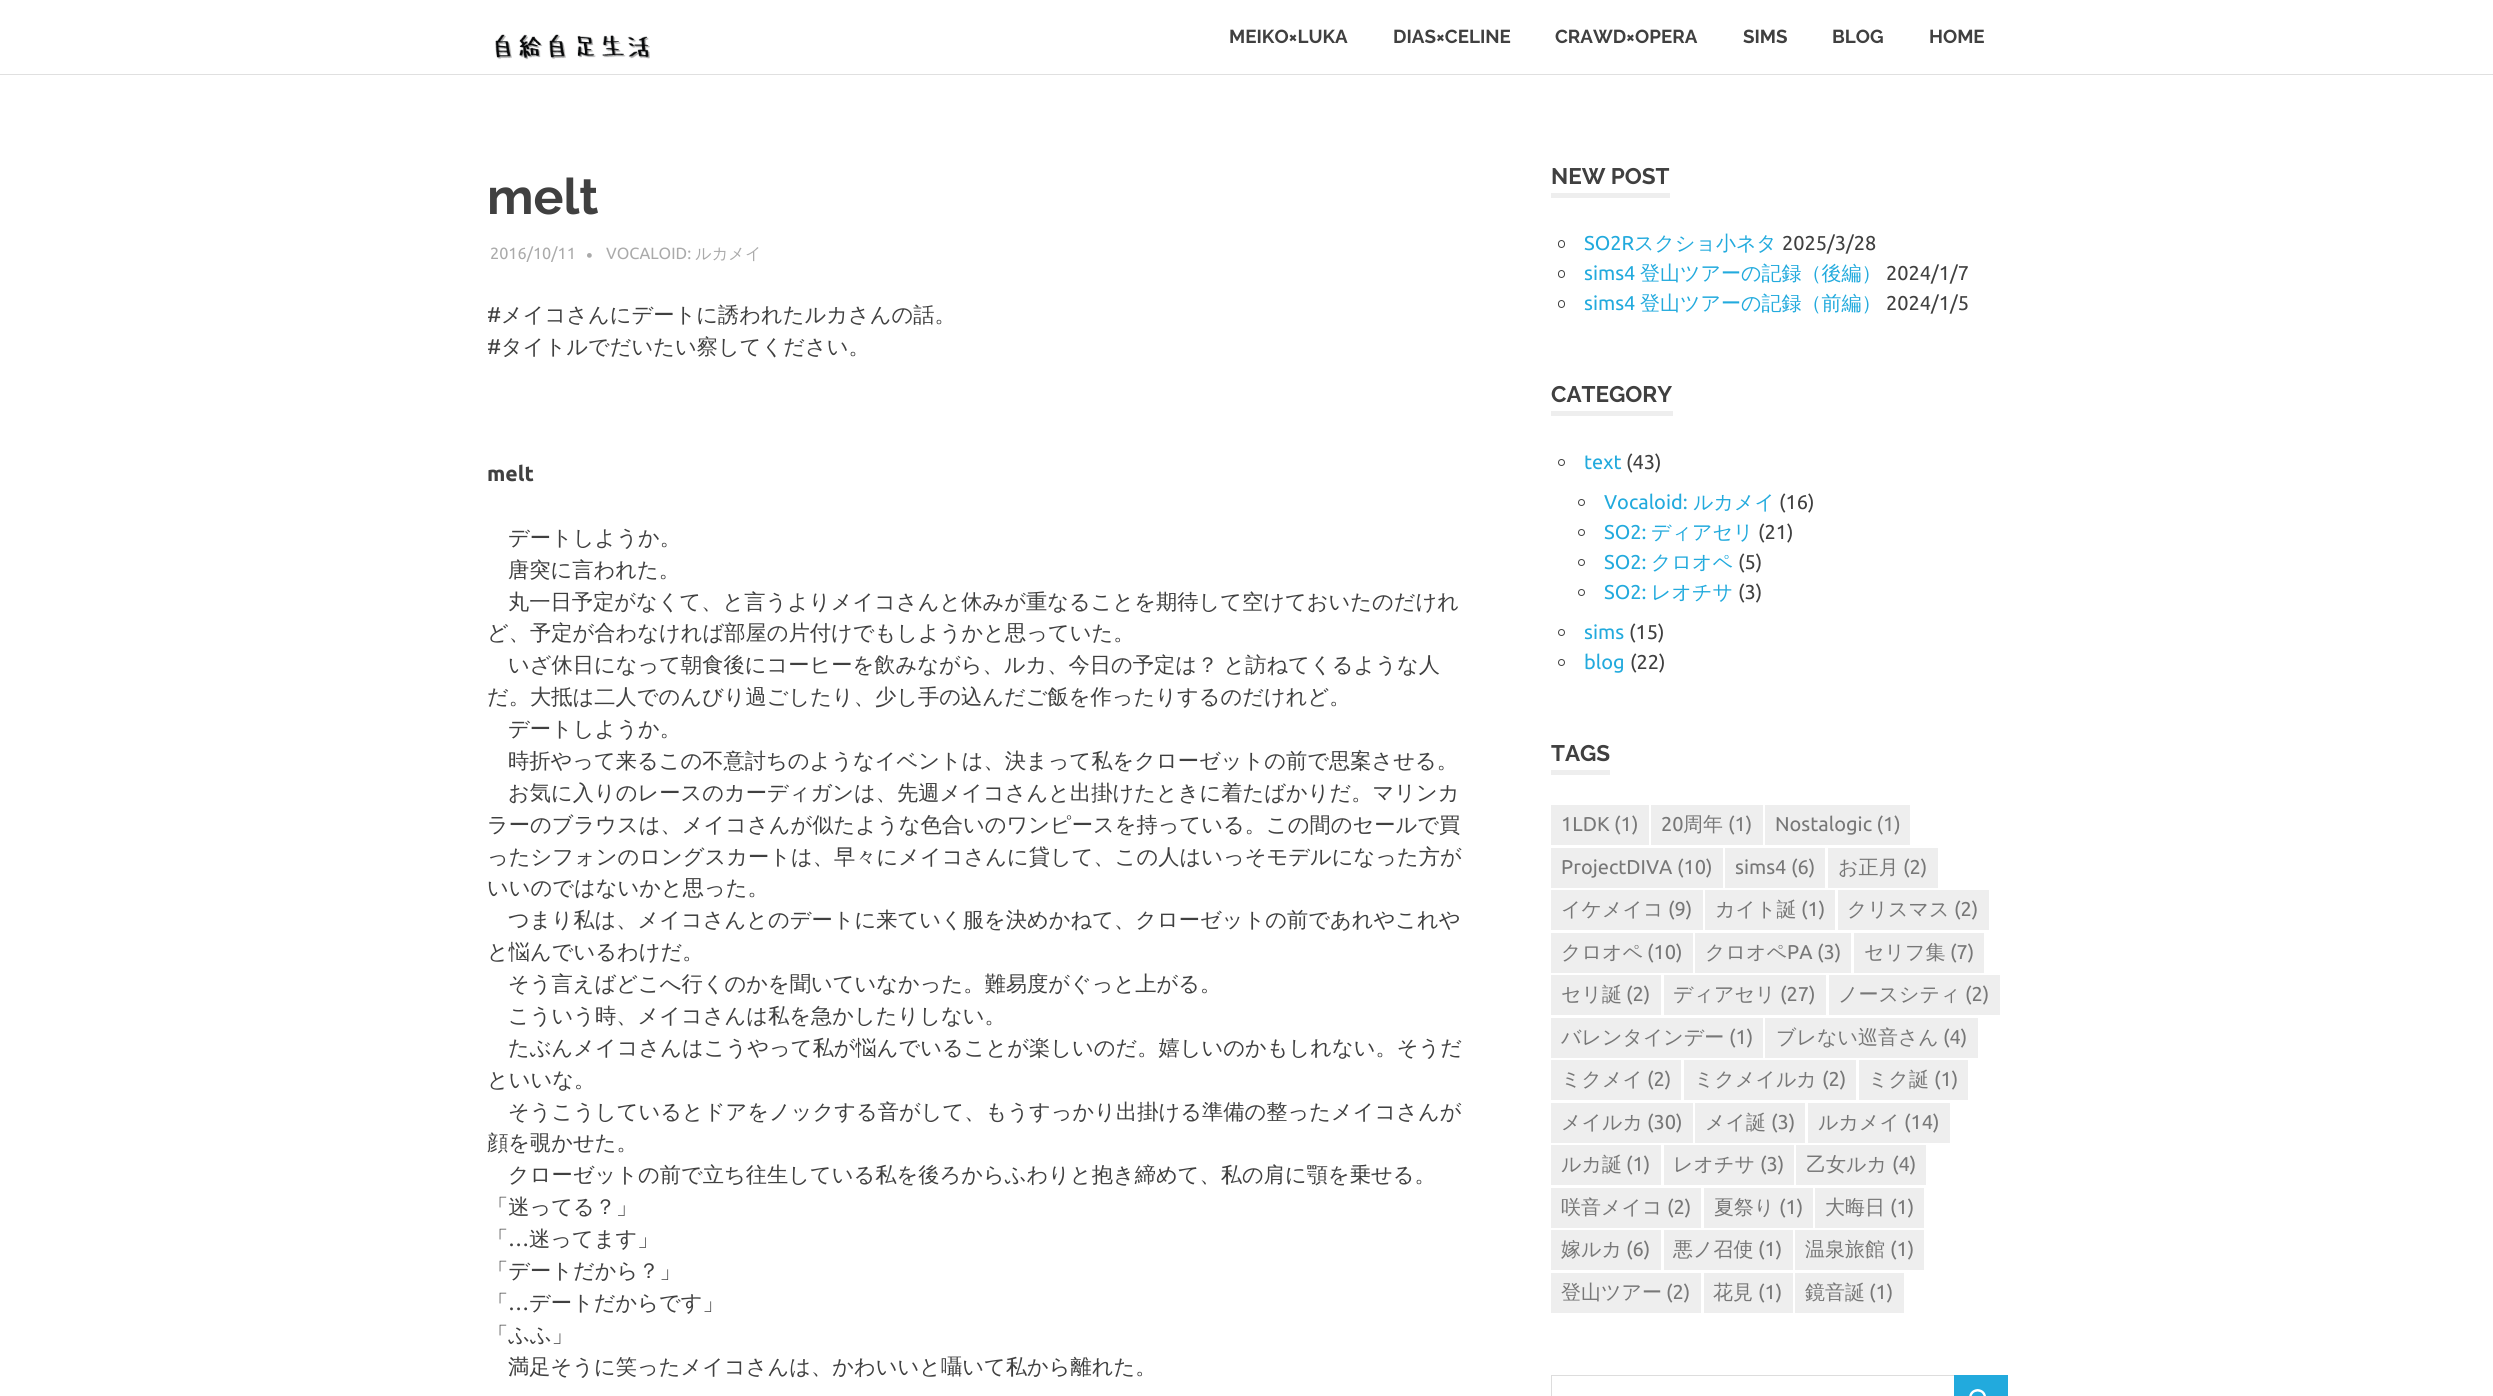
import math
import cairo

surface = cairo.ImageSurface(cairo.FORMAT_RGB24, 2493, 1396)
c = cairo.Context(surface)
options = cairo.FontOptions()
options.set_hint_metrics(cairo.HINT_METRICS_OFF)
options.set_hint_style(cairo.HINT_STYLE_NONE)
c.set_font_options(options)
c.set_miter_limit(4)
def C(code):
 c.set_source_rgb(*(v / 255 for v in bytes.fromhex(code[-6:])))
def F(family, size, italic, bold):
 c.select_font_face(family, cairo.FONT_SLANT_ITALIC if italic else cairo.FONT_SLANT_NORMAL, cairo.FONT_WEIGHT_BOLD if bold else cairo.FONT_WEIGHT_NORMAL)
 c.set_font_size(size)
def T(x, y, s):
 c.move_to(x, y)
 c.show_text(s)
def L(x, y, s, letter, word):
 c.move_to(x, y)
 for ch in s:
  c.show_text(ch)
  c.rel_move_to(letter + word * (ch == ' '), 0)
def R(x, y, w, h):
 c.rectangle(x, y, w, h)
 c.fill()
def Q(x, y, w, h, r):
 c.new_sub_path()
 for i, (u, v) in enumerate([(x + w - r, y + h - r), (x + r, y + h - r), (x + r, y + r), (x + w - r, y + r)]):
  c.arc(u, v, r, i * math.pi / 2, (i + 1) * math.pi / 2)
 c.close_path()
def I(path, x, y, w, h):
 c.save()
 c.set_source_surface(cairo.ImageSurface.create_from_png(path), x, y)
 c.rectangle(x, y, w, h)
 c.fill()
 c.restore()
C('ffffff')
c.paint()
C('e0e0e0')
R(0,74,2493,1)
I('1.png',495,34,155,26)
F('Raleway',18.75,0,1)
C('404040')
T(1229,43,'MEIKO×LUKA')
T(1393,43,'DIAS×CELINE')
T(1555,43,'CRAWD×OPERA')
T(1743,43,'SIMS')
T(1832,43,'BLOG')
T(1929,43,'HOME')
F('Raleway',50,0,1)
T(487,214,'melt')
F('Ubuntu',16.25,0,0)
C('aaaaaa')
T(490,259,'2016/10/11')
F('Ubuntu',18.75,0,0)
T(586,262,'•')
F('Ubuntu',16.25,0,0)
T(606,259,'VOCALOID:')
F('WenQuanYi Zen Hei Medium',16.25,0,0)
T(695,259,'ルカメイ')
F('Ubuntu',21.25,0,0)
C('404040')
T(487,322,'#')
F('WenQuanYi Zen Hei Medium',21.25,0,0)
T(501,322,'メイコさんにデートに誘われたルカさんの話。')
F('Ubuntu',21.25,0,0)
T(487,354,'#')
F('WenQuanYi Zen Hei Medium',21.25,0,0)
T(501,354,'タイトルでだいたい察してください。')
F('Ubuntu',21.25,0,1)
T(487,481,'melt')
F('WenQuanYi Zen Hei Medium',21.25,0,0)
T(508,545,'デートしようか。')
T(508,577,'唐突に言われた。')
T(508,609,'丸一日予定がなくて、と言うよりメイコさんと休みが重なることを期待して空けておいたのだけれ')
T(487,640,'ど、予定が合わなければ部屋の片付けでもしようかと思っていた。')
L(508,672,'いざ休日になって朝食後にコーヒーを飲みながら、ルカ、今日の予定は？ と訪ねてくるような人',0,-1)
T(487,704,'だ。大抵は二人でのんびり過ごしたり、少し手の込んだご飯を作ったりするのだけれど。')
T(508,736,'デートしようか。')
T(508,768,'時折やって来るこの不意討ちのようなイベントは、決まって私をクローゼットの前で思案させる。')
T(508,800,'お気に入りのレースのカーディガンは、先週メイコさんと出掛けたときに着たばかりだ。マリンカ')
T(487,832,'ラーのブラウスは、メイコさんが似たような色合いのワンピースを持っている。この間のセールで買')
T(487,864,'ったシフォンのロングスカートは、早々にメイコさんに貸して、この人はいっそモデルになった方が')
T(487,895,'いいのではないかと思った。')
T(508,927,'つまり私は、メイコさんとのデートに来ていく服を決めかねて、クローゼットの前であれやこれや')
T(487,959,'と悩んでいるわけだ。')
T(508,991,'そう言えばどこへ行くのかを聞いていなかった。難易度がぐっと上がる。')
T(508,1023,'こういう時、メイコさんは私を急かしたりしない。')
T(508,1055,'たぶんメイコさんはこうやって私が悩んでいることが楽しいのだ。嬉しいのかもしれない。そうだ')
T(487,1087,'といいな。')
T(508,1119,'そうこうしているとドアをノックする音がして、もうすっかり出掛ける準備の整ったメイコさんが')
T(487,1150,'顔を覗かせた。')
T(508,1182,'クローゼットの前で立ち往生している私を後ろからふわりと抱き締めて、私の肩に顎を乗せる。')
T(487,1214,'「迷ってる？」')
T(487,1246,'「')
F('Ubuntu',21.25,0,0)
T(508,1246,'…')
F('WenQuanYi Zen Hei Medium',21.25,0,0)
T(529,1246,'迷ってます」')
T(487,1278,'「デートだから？」')
T(487,1310,'「')
F('Ubuntu',21.25,0,0)
T(508,1310,'…')
F('WenQuanYi Zen Hei Medium',21.25,0,0)
T(529,1310,'デートだからです」')
T(487,1342,'「ふふ」')
T(508,1374,'満足そうに笑ったメイコさんは、かわいいと囁いて私から離れた。')
C('eeeeee')
R(1551,193,119,5)
F('Raleway',22.5,0,1)
C('404040')
T(1551,184,'NEW POST')
Q(1558.5,240.5,6,7,3)
c.set_line_width(1)
c.stroke()
F('Ubuntu',20,0,0)
C('22aadd')
T(1584,250,'SO2R')
F('WenQuanYi Zen Hei Medium',20,0,0)
T(1634,250,'スクショ小ネタ')
F('Ubuntu',20,0,0)
C('404040')
T(1782,250,'2025/3/28')
Q(1558.5,270.5,6,7,3)
c.stroke()
C('22aadd')
T(1584,280,'sims4')
F('WenQuanYi Zen Hei Medium',20,0,0)
T(1640,280,'登山ツアーの記録（後編）')
F('Ubuntu',20,0,0)
C('404040')
T(1886,280,'2024/1/7')
Q(1558.5,300.5,6,7,3)
c.stroke()
C('22aadd')
T(1584,310,'sims4')
F('WenQuanYi Zen Hei Medium',20,0,0)
T(1640,310,'登山ツアーの記録（前編）')
F('Ubuntu',20,0,0)
C('404040')
T(1886,310,'2024/1/5')
C('eeeeee')
R(1551,411,122,5)
F('Raleway',22.5,0,1)
C('404040')
T(1551,402,'CATEGORY')
c.new_path()
c.arc(1561.5,462.5,3,0,2 * math.pi)
c.stroke()
F('Ubuntu',20,0,0)
C('22aadd')
T(1584,469,'text')
C('404040')
T(1626,469,'(43)')
c.new_path()
c.arc(1581.5,502.5,3,0,2 * math.pi)
c.stroke()
C('22aadd')
T(1604,509,'Vocaloid:')
F('WenQuanYi Zen Hei Medium',20,0,0)
T(1693,509,'ルカメイ')
F('Ubuntu',20,0,0)
C('404040')
T(1779,509,'(16)')
c.new_path()
c.arc(1581.5,532.5,3,0,2 * math.pi)
c.stroke()
C('22aadd')
T(1604,539,'SO2:')
F('WenQuanYi Zen Hei Medium',20,0,0)
T(1651,539,'ディアセリ')
F('Ubuntu',20,0,0)
C('404040')
T(1758,539,'(21)')
c.new_path()
c.arc(1581.5,562.5,3,0,2 * math.pi)
c.stroke()
C('22aadd')
T(1604,569,'SO2:')
F('WenQuanYi Zen Hei Medium',20,0,0)
T(1651,569,'クロオペ')
F('Ubuntu',20,0,0)
C('404040')
T(1738,569,'(5)')
c.new_path()
c.arc(1581.5,592.5,3,0,2 * math.pi)
c.stroke()
C('22aadd')
T(1604,599,'SO2:')
F('WenQuanYi Zen Hei Medium',20,0,0)
T(1651,599,'レオチサ')
F('Ubuntu',20,0,0)
C('404040')
T(1738,599,'(3)')
c.new_path()
c.arc(1561.5,632.5,3,0,2 * math.pi)
c.stroke()
C('22aadd')
T(1584,639,'sims')
C('404040')
T(1629,639,'(15)')
c.new_path()
c.arc(1561.5,662.5,3,0,2 * math.pi)
c.stroke()
C('22aadd')
T(1584,669,'blog')
C('404040')
T(1630,669,'(22)')
C('eeeeee')
R(1551,770,59,5)
F('Raleway',22.5,0,1)
C('404040')
T(1551,761,'TAGS')
C('eeeeee')
R(1551,805,98,40)
F('Ubuntu',20,0,0)
C('777777')
T(1561,831,'1LDK (1)')
C('eeeeee')
R(1651,805,112,40)
C('777777')
T(1661,831,'20')
F('WenQuanYi Zen Hei Medium',20,0,0)
T(1683,831,'周年')
F('Ubuntu',20,0,0)
T(1728,831,'(1)')
C('eeeeee')
R(1765,805,145,40)
C('777777')
T(1775,831,'Nostalogic (1)')
C('eeeeee')
R(1551,848,172,40)
C('777777')
T(1561,874,'ProjectDIVA (10)')
C('eeeeee')
R(1725,848,100,40)
C('777777')
T(1735,874,'sims4 (6)')
C('eeeeee')
R(1828,848,110,40)
F('WenQuanYi Zen Hei Medium',20,0,0)
C('777777')
T(1838,874,'お正月')
F('Ubuntu',20,0,0)
T(1903,874,'(2)')
C('eeeeee')
R(1551,890,152,40)
F('WenQuanYi Zen Hei Medium',20,0,0)
C('777777')
T(1561,916,'イケメイコ')
F('Ubuntu',20,0,0)
T(1668,916,'(9)')
C('eeeeee')
R(1705,890,130,40)
F('WenQuanYi Zen Hei Medium',20,0,0)
C('777777')
T(1715,916,'カイト誕')
F('Ubuntu',20,0,0)
T(1801,916,'(1)')
C('eeeeee')
R(1838,890,151,40)
F('WenQuanYi Zen Hei Medium',20,0,0)
C('777777')
T(1847,916,'クリスマス')
F('Ubuntu',20,0,0)
T(1954,916,'(2)')
C('eeeeee')
R(1551,933,142,40)
F('WenQuanYi Zen Hei Medium',20,0,0)
C('777777')
T(1561,959,'クロオペ')
F('Ubuntu',20,0,0)
T(1647,959,'(10)')
C('eeeeee')
R(1695,933,156,40)
F('WenQuanYi Zen Hei Medium',20,0,0)
C('777777')
T(1705,959,'クロオペ')
F('Ubuntu',20,0,0)
T(1787,959,'PA (3)')
C('eeeeee')
R(1854,933,130,40)
F('WenQuanYi Zen Hei Medium',20,0,0)
C('777777')
T(1864,959,'セリフ集')
F('Ubuntu',20,0,0)
T(1950,959,'(7)')
C('eeeeee')
R(1551,975,110,40)
F('WenQuanYi Zen Hei Medium',20,0,0)
C('777777')
T(1561,1001,'セリ誕')
F('Ubuntu',20,0,0)
T(1626,1001,'(2)')
C('eeeeee')
R(1664,975,162,40)
F('WenQuanYi Zen Hei Medium',20,0,0)
C('777777')
T(1673,1001,'ディアセリ')
F('Ubuntu',20,0,0)
T(1780,1001,'(27)')
C('eeeeee')
R(1829,975,171,40)
F('WenQuanYi Zen Hei Medium',20,0,0)
C('777777')
T(1838,1001,'ノースシティ')
F('Ubuntu',20,0,0)
T(1965,1001,'(2)')
C('eeeeee')
R(1551,1018,212,40)
F('WenQuanYi Zen Hei Medium',20,0,0)
C('777777')
T(1561,1044,'バレンタインデー')
F('Ubuntu',20,0,0)
T(1729,1044,'(1)')
C('eeeeee')
R(1765,1018,213,40)
F('WenQuanYi Zen Hei Medium',20,0,0)
C('777777')
T(1776,1044,'ブレない巡音さん')
F('Ubuntu',20,0,0)
T(1943,1044,'(4)')
C('eeeeee')
R(1551,1060,130,40)
F('WenQuanYi Zen Hei Medium',20,0,0)
C('777777')
T(1561,1086,'ミクメイ')
F('Ubuntu',20,0,0)
T(1647,1086,'(2)')
C('eeeeee')
R(1684,1060,172,40)
F('WenQuanYi Zen Hei Medium',20,0,0)
C('777777')
T(1694,1086,'ミクメイルカ')
F('Ubuntu',20,0,0)
T(1822,1086,'(2)')
C('eeeeee')
R(1859,1060,109,40)
F('WenQuanYi Zen Hei Medium',20,0,0)
C('777777')
T(1868,1086,'ミク誕')
F('Ubuntu',20,0,0)
T(1934,1086,'(1)')
C('eeeeee')
R(1551,1103,142,40)
F('WenQuanYi Zen Hei Medium',20,0,0)
C('777777')
T(1561,1129,'メイルカ')
F('Ubuntu',20,0,0)
T(1647,1129,'(30)')
C('eeeeee')
R(1695,1103,110,40)
F('WenQuanYi Zen Hei Medium',20,0,0)
C('777777')
T(1705,1129,'メイ誕')
F('Ubuntu',20,0,0)
T(1771,1129,'(3)')
C('eeeeee')
R(1808,1103,142,40)
F('WenQuanYi Zen Hei Medium',20,0,0)
C('777777')
T(1818,1129,'ルカメイ')
F('Ubuntu',20,0,0)
T(1904,1129,'(14)')
C('eeeeee')
R(1551,1145,110,40)
F('WenQuanYi Zen Hei Medium',20,0,0)
C('777777')
T(1561,1171,'ルカ誕')
F('Ubuntu',20,0,0)
T(1626,1171,'(1)')
C('eeeeee')
R(1664,1145,130,40)
F('WenQuanYi Zen Hei Medium',20,0,0)
C('777777')
T(1673,1171,'レオチサ')
F('Ubuntu',20,0,0)
T(1760,1171,'(3)')
C('eeeeee')
R(1796,1145,130,40)
F('WenQuanYi Zen Hei Medium',20,0,0)
C('777777')
T(1806,1171,'乙女ルカ')
F('Ubuntu',20,0,0)
T(1892,1171,'(4)')
C('eeeeee')
R(1551,1188,150,40)
F('WenQuanYi Zen Hei Medium',20,0,0)
C('777777')
T(1561,1214,'咲音メイコ')
F('Ubuntu',20,0,0)
T(1667,1214,'(2)')
C('eeeeee')
R(1704,1188,109,40)
F('WenQuanYi Zen Hei Medium',20,0,0)
C('777777')
T(1714,1214,'夏祭り')
F('Ubuntu',20,0,0)
T(1779,1214,'(1)')
C('eeeeee')
R(1815,1188,109,40)
F('WenQuanYi Zen Hei Medium',20,0,0)
C('777777')
T(1825,1214,'大晦日')
F('Ubuntu',20,0,0)
T(1890,1214,'(1)')
C('eeeeee')
R(1551,1230,110,40)
F('WenQuanYi Zen Hei Medium',20,0,0)
C('777777')
T(1561,1256,'嫁ルカ')
F('Ubuntu',20,0,0)
T(1626,1256,'(6)')
C('eeeeee')
R(1664,1230,129,40)
F('WenQuanYi Zen Hei Medium',20,0,0)
C('777777')
T(1673,1256,'悪ノ召使')
F('Ubuntu',20,0,0)
T(1758,1256,'(1)')
C('eeeeee')
R(1795,1230,129,40)
F('WenQuanYi Zen Hei Medium',20,0,0)
C('777777')
T(1805,1256,'温泉旅館')
F('Ubuntu',20,0,0)
T(1890,1256,'(1)')
C('eeeeee')
R(1551,1273,150,40)
F('WenQuanYi Zen Hei Medium',20,0,0)
C('777777')
T(1561,1299,'登山ツアー')
F('Ubuntu',20,0,0)
T(1666,1299,'(2)')
C('eeeeee')
R(1704,1273,89,40)
F('WenQuanYi Zen Hei Medium',20,0,0)
C('777777')
T(1713,1299,'花見')
F('Ubuntu',20,0,0)
T(1758,1299,'(1)')
C('eeeeee')
R(1795,1273,109,40)
F('WenQuanYi Zen Hei Medium',20,0,0)
C('777777')
T(1805,1299,'鏡音誕')
F('Ubuntu',20,0,0)
T(1869,1299,'(1)')
c.rectangle(1551.5,1375.5,403,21)
C('dddddd')
c.stroke()
C('22aadd')
R(1954,1375,54,21)
I('2.png',1969,1389,17,7)
surface.write_to_png('o.png')
